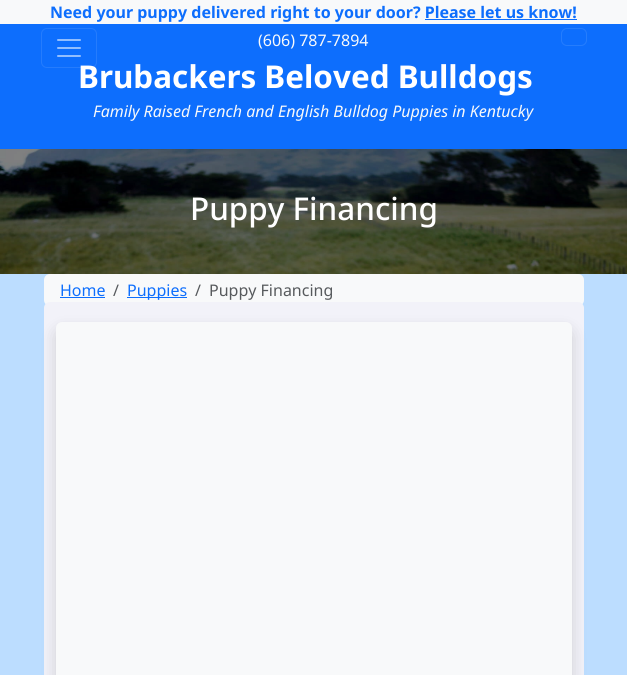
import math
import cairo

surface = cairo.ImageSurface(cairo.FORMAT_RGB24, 627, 675)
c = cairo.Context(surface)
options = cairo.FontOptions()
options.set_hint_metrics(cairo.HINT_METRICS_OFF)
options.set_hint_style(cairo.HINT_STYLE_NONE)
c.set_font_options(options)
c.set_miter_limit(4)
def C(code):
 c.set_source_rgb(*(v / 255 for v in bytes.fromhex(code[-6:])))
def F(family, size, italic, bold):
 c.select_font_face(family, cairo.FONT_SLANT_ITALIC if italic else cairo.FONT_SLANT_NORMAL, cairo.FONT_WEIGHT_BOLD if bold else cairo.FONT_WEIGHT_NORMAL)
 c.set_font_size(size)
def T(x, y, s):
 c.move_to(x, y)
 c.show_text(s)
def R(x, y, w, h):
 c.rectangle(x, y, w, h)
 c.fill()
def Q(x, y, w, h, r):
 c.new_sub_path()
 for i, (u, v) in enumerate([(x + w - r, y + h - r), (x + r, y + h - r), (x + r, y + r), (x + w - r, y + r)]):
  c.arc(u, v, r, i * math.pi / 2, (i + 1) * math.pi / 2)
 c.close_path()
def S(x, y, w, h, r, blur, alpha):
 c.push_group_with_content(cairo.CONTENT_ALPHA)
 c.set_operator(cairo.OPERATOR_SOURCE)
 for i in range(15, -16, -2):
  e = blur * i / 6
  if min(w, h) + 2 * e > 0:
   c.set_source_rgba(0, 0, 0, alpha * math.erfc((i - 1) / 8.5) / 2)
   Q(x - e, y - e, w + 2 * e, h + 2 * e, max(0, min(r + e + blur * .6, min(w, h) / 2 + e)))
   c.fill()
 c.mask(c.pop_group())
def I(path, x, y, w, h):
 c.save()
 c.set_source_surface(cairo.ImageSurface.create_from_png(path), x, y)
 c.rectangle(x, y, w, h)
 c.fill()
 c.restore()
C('bcddff')
c.paint()
C('f8f9fa')
R(0,0,627,24)
F('Noto Sans',16,0,1)
C('0d6efd')
T(50,18,'Need your puppy delivered right to your door? Please let us know!')
R(425,19,152,1)
R(0,24,627,125)
F('Noto Sans',31.4,0,1)
C('ffffff')
T(78,88,'Brubackers Beloved Bulldogs')
Q(41.5,28.5,55,39,5.5)
c.set_source_rgba(1,1,1,0.1)
c.set_line_width(1)
c.stroke()
I('1.png',57,39,24,18)
F('Noto Sans',16,0,0)
C('f8f9fa')
T(258,46,'(606) 787-7894')
F('Noto Sans',16,1,0)
T(93,117,'Family Raised French and English Bulldog Puppies in Kentucky')
Q(561.5,28.5,25,17,5.5)
C('257dfd')
c.stroke()
I('2.png',0,149,627,125)
F('Noto Sans Medium',31.4,0,0)
C('ffffff')
T(190,220,'Puppy Financing')
C('f8f9fa')
Q(44,274,540,32,6)
c.fill()
F('Noto Sans',16,0,0)
C('0d6efd')
T(60,296,'Home')
R(60,297,45,1)
C('575a5d')
T(113,296,'/')
C('0d6efd')
R(127,297,60,1)
T(127,296,'Puppies')
C('575a5d')
T(195,296,'/')
T(209,296,'Puppy Financing')
C('f2f2f9')
Q(44,302,540,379,6)
c.fill()
C('000000')
S(56,330,516,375,6,8,.15)
C('f8f9fa')
Q(56,322,516,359,6)
c.fill()
surface.write_to_png('o.png')
